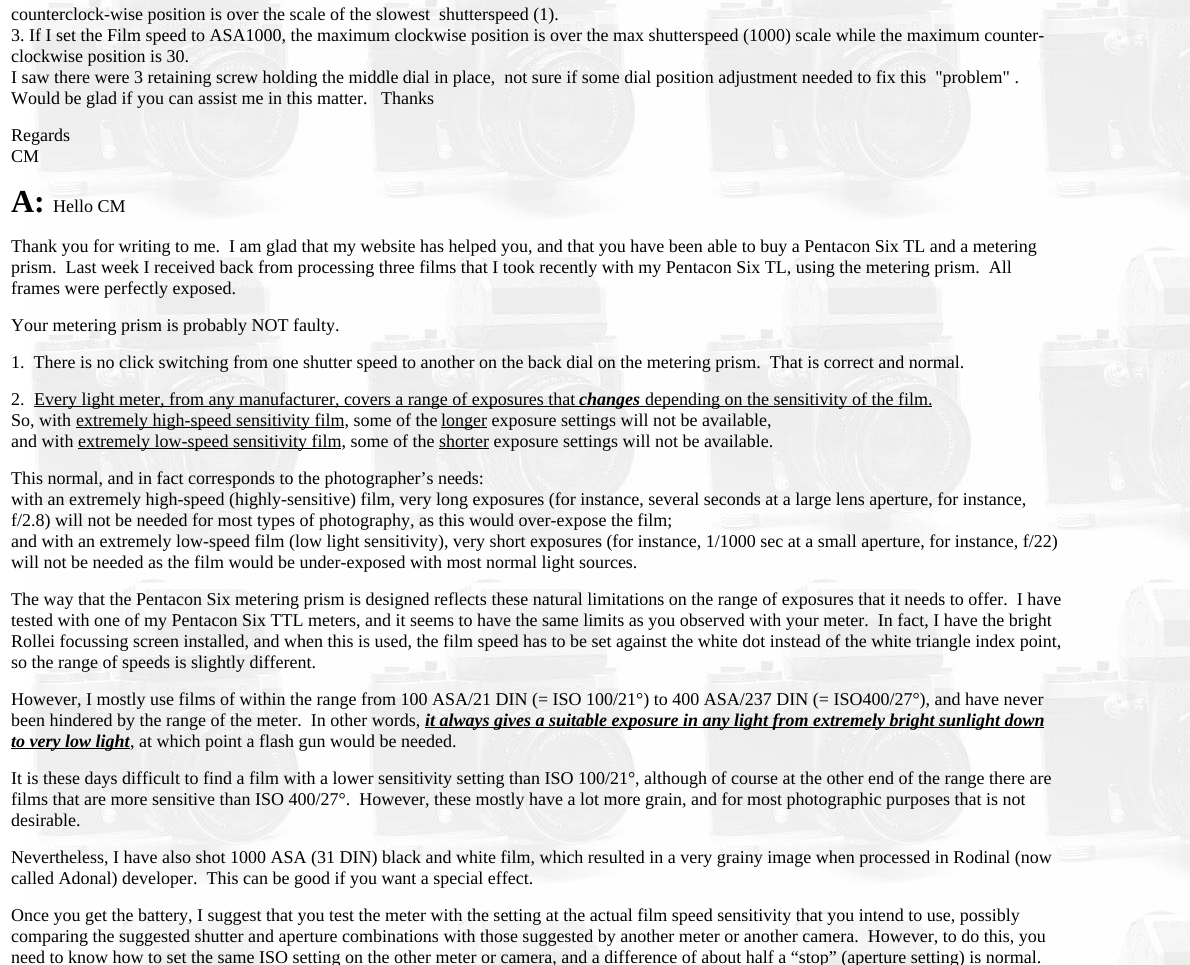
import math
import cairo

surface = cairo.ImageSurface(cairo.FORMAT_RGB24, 1190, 965)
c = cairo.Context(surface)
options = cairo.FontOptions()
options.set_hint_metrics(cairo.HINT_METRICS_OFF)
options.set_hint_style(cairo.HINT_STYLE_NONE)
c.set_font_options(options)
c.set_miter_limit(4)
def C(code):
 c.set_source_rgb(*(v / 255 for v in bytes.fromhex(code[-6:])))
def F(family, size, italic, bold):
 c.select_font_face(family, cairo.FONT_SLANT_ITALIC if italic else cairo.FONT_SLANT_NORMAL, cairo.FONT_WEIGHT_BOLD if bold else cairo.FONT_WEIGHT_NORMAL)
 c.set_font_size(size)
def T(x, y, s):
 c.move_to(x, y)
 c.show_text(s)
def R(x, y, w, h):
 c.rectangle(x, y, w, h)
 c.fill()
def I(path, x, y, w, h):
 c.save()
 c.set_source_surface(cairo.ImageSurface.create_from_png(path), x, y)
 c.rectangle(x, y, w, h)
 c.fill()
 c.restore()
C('ffffff')
c.paint()
I('1.png',30,0,1160,965)
F('Liberation Serif',18,0,0)
C('000000')
T(11,20,'counterclock-wise position is over the scale of the slowest  shutterspeed (1).')
T(11,41,'3. If I set the Film speed to ASA1000, the maximum clockwise position is over the max shutterspeed (1000) scale while the maximum counter-')
T(11,62,'clockwise position is 30.')
T(11,83,'I saw there were 3 retaining screw holding the middle dial in place,  not sure if some dial position adjustment needed to fix this  "problem" .')
T(11,104,'Would be glad if you can assist me in this matter.   Thanks')
T(11,141,'Regards')
T(11,162,'CM')
F('Liberation Serif',32,0,1)
T(11,212,'A:')
F('Liberation Serif',18,0,0)
T(53,212,'Hello CM')
T(11,252,'Thank you for writing to me.  I am glad that my website has helped you, and that you have been able to buy a Pentacon Six TL and a metering')
T(11,273,'prism.  Last week I received back from processing three films that I took recently with my Pentacon Six TL, using the metering prism.  All')
T(11,294,'frames were perfectly exposed.')
T(11,331,'Your metering prism is probably NOT faulty.')
T(11,368,'1.  There is no click switching from one shutter speed to another on the back dial on the metering prism.  That is correct and normal.')
T(11,405,'2.')
R(34,406,898,1)
T(34,405,'Every light meter, from any manufacturer, covers a range of exposures that')
F('Liberation Serif',18,1,1)
T(579,405,'changes')
F('Liberation Serif',18,0,0)
T(645,405,'depending on the sensitivity of the film.')
T(11,426,'So, with')
R(76,427,268,1)
T(76,426,'extremely high-speed sensitivity film, some of the')
R(441,427,46,1)
T(441,426,'longer exposure settings will not be available,')
T(11,447,'and with')
R(78,448,263,1)
T(78,447,'extremely low-speed sensitivity film, some of the shorter exposure settings will not be available.')
R(439,448,50,1)
T(11,484,'This normal, and in fact corresponds to the photographer’s needs:')
T(11,505,'with an extremely high-speed (highly-sensitive) film, very long exposures (for instance, several seconds at a large lens aperture, for instance,')
T(11,526,'f/2.8) will not be needed for most types of photography, as this would over-expose the film;')
T(11,547,'and with an extremely low-speed film (low light sensitivity), very short exposures (for instance, 1/1000 sec at a small aperture, for instance, f/22)')
T(11,568,'will not be needed as the film would be under-exposed with most normal light sources.')
T(11,605,'The way that the Pentacon Six metering prism is designed reflects these natural limitations on the range of exposures that it needs to offer.  I have')
T(11,626,'tested with one of my Pentacon Six TTL meters, and it seems to have the same limits as you observed with your meter.  In fact, I have the bright')
T(11,647,'Rollei focussing screen installed, and when this is used, the film speed has to be set against the white dot instead of the white triangle index point,')
T(11,668,'so the range of speeds is slightly different.')
T(11,705,'However, I mostly use films of within the range from 100 ASA/21 DIN (= ISO 100/21°) to 400 ASA/237 DIN (= ISO400/27°), and have never')
T(11,726,'been hindered by the range of the meter.  In other words,')
R(425,727,619,1)
F('Liberation Serif',18,1,1)
T(425,726,'it always gives a suitable exposure in any light from extremely bright sunlight down')
R(11,748,119,1)
T(11,747,'to very low light')
F('Liberation Serif',18,0,0)
T(130,747,', at which point a flash gun would be needed.')
T(11,784,'It is these days difficult to find a film with a lower sensitivity setting than ISO 100/21°, although of course at the other end of the range there are')
T(11,805,'films that are more sensitive than ISO 400/27°.  However, these mostly have a lot more grain, and for most photographic purposes that is not')
T(11,826,'desirable.')
T(11,863,'Nevertheless, I have also shot 1000 ASA (31 DIN) black and white film, which resulted in a very grainy image when processed in Rodinal (now')
T(11,884,'called Adonal) developer.  This can be good if you want a special effect.')
T(11,921,'Once you get the battery, I suggest that you test the meter with the setting at the actual film speed sensitivity that you intend to use, possibly')
T(11,942,'comparing the suggested shutter and aperture combinations with those suggested by another meter or another camera.  However, to do this, you')
T(11,963,'need to know how to set the same ISO setting on the other meter or camera, and a difference of about half a “stop” (aperture setting) is normal.')
surface.write_to_png('o.png')
